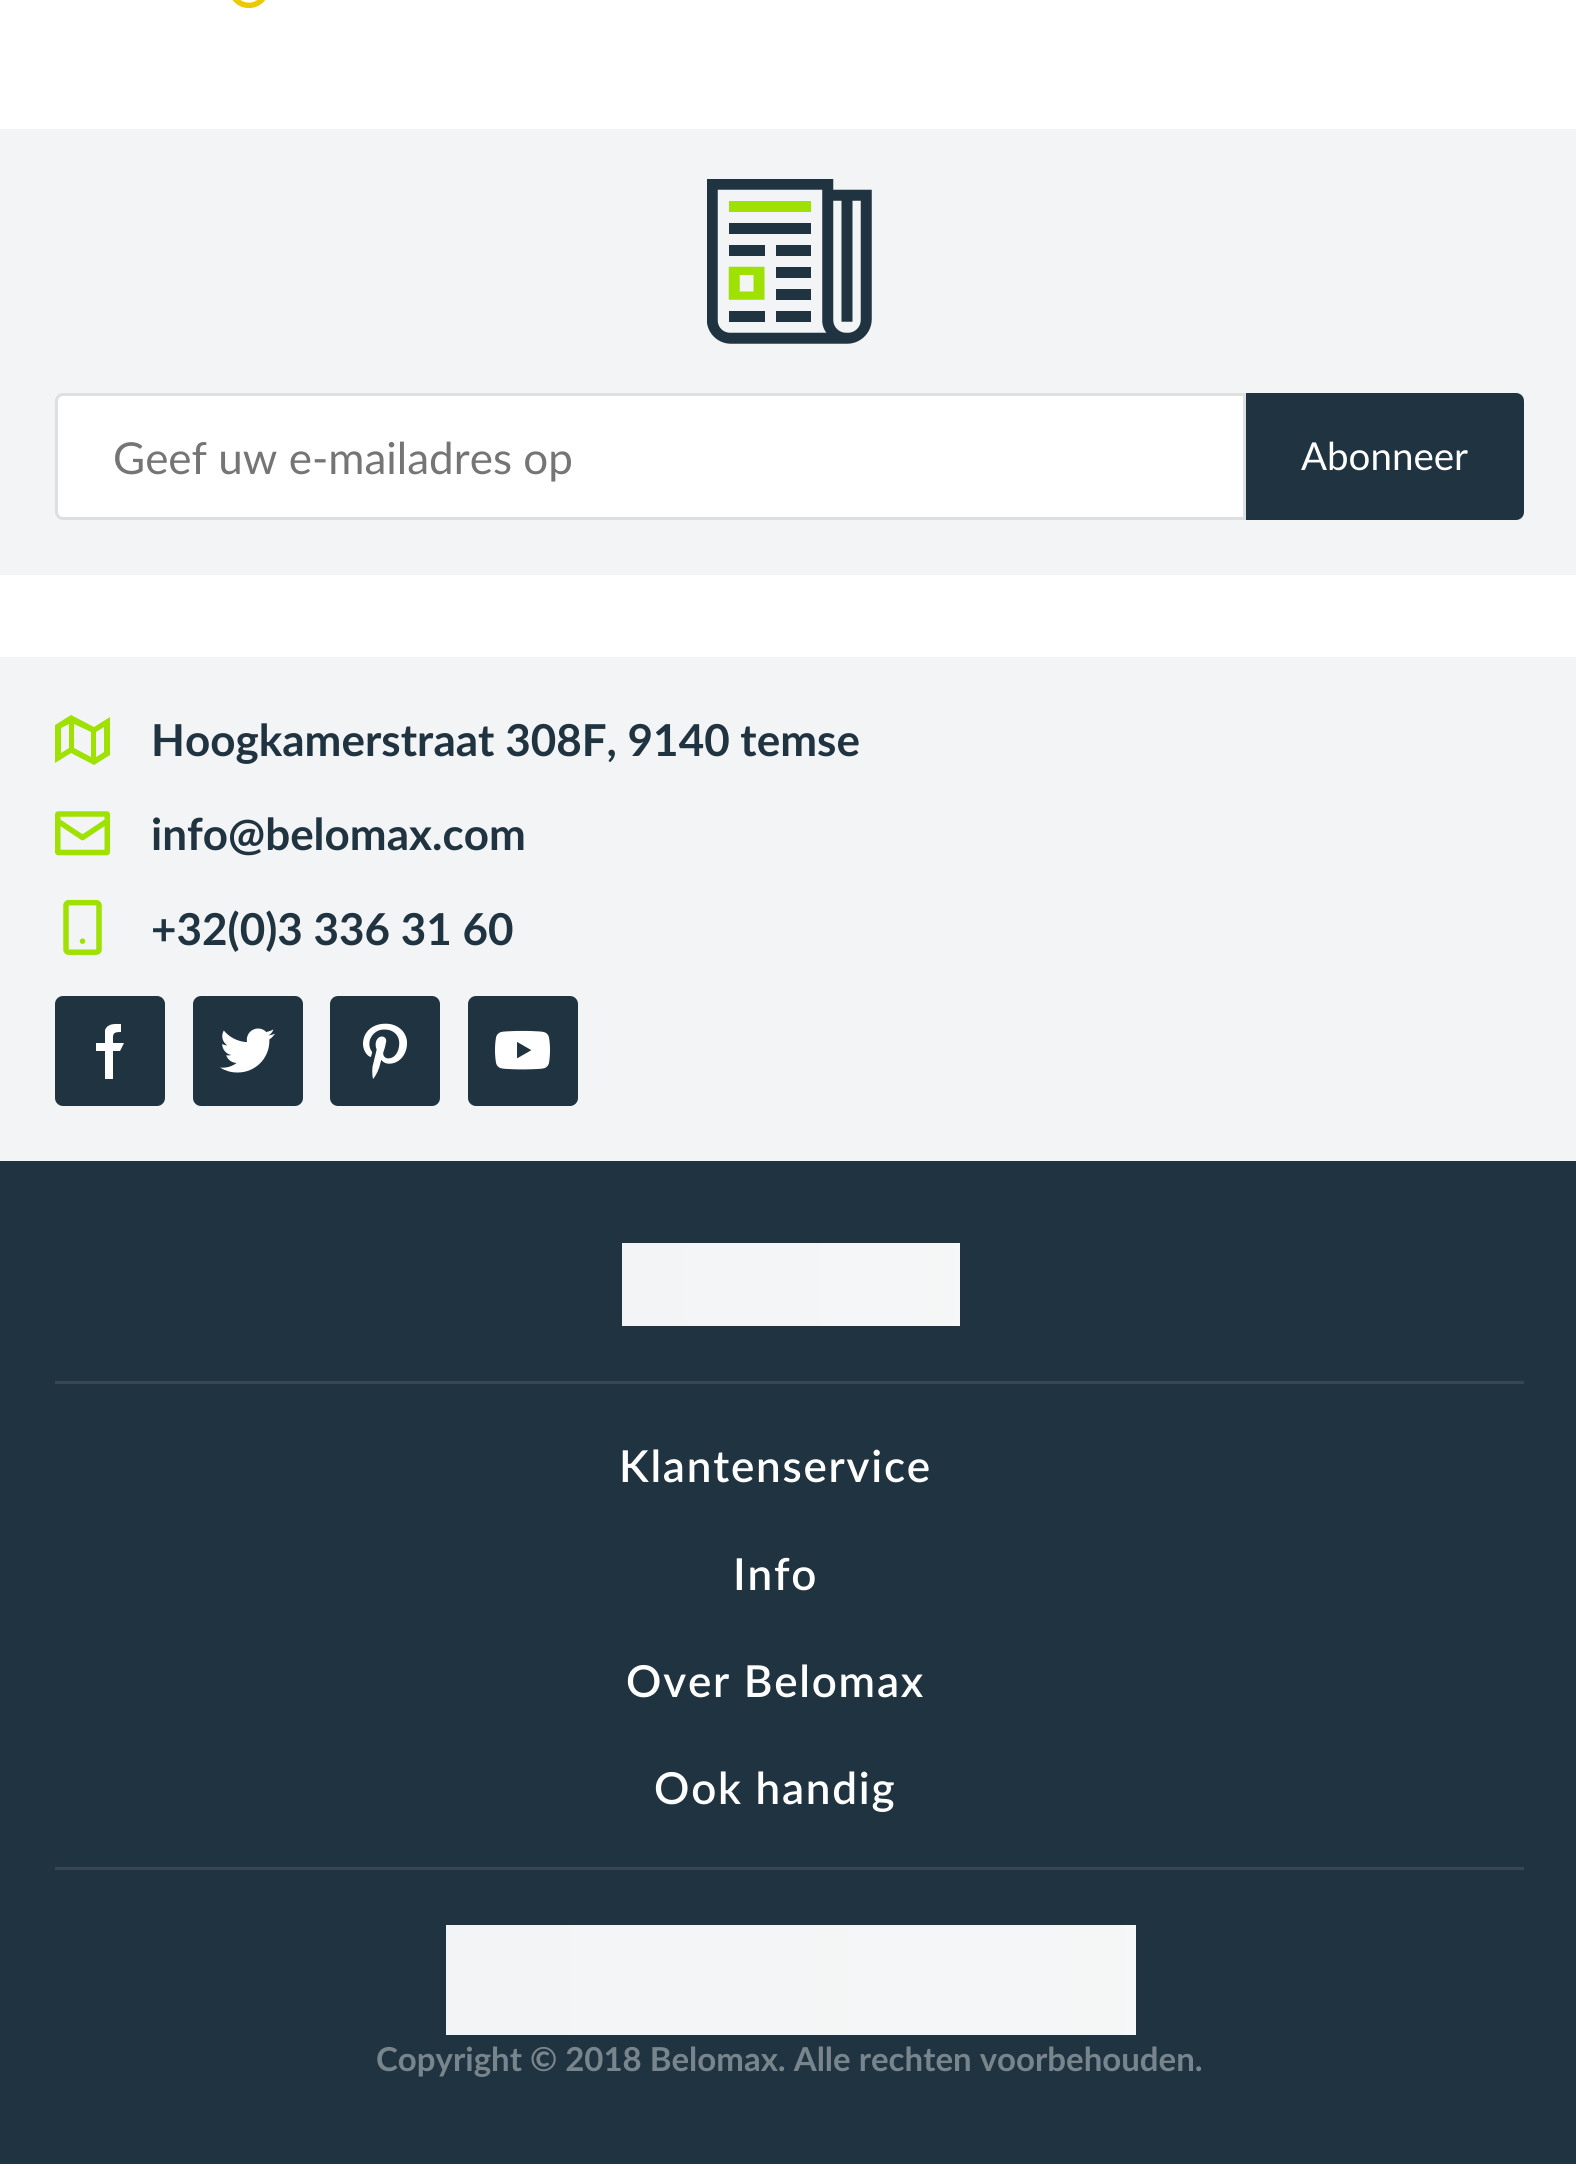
import math
import cairo

surface = cairo.ImageSurface(cairo.FORMAT_RGB24, 1576, 2169)
c = cairo.Context(surface)
options = cairo.FontOptions()
options.set_hint_metrics(cairo.HINT_METRICS_OFF)
options.set_hint_style(cairo.HINT_STYLE_NONE)
c.set_font_options(options)
c.set_miter_limit(4)
def C(code):
 c.set_source_rgb(*(v / 255 for v in bytes.fromhex(code[-6:])))
def F(family, size, italic, bold):
 c.select_font_face(family, cairo.FONT_SLANT_ITALIC if italic else cairo.FONT_SLANT_NORMAL, cairo.FONT_WEIGHT_BOLD if bold else cairo.FONT_WEIGHT_NORMAL)
 c.set_font_size(size)
def T(x, y, s):
 c.move_to(x, y)
 c.show_text(s)
def L(x, y, s, letter, word):
 c.move_to(x, y)
 for ch in s:
  c.show_text(ch)
  c.rel_move_to(letter + word * (ch == ' '), 0)
def R(x, y, w, h):
 c.rectangle(x, y, w, h)
 c.fill()
def Q(x, y, w, h, r):
 c.new_sub_path()
 for i, (u, v) in enumerate([(x + w - r, y + h - r), (x + r, y + h - r), (x + r, y + r), (x + w - r, y + r)]):
  c.arc(u, v, r, i * math.pi / 2, (i + 1) * math.pi / 2)
 c.close_path()
def I(path, x, y, w, h):
 c.save()
 c.set_source_surface(cairo.ImageSurface.create_from_png(path), x, y)
 c.rectangle(x, y, w, h)
 c.fill()
 c.restore()
C('ffffff')
c.paint()
I('1.png',232,0,34,9)
C('f2f4f5')
R(0,129,1576,446)
I('2.png',707,179,165,165)
C('ffffff')
c.new_path()
c.move_to(63,394.5)
c.line_to(1244.5,394.5)
c.line_to(1244.5,518.5)
c.line_to(63,518.5)
c.curve_to(59.5,518.5,56.5,515.5,56.5,512)
c.line_to(56.5,401)
c.curve_to(56.5,397.5,59.5,394.5,63,394.5)
c.close_path()
c.fill_preserve()
C('dddfe0')
c.set_line_width(3)
c.stroke()
F('Lato',44,0,0)
C('757575')
T(113,474,'Geef uw e-mailadres op')
C('203340')
c.new_path()
c.move_to(1246,393)
c.line_to(1516,393)
c.curve_to(1520.5,393,1524,396.5,1524,401)
c.line_to(1524,512)
c.curve_to(1524,516.5,1520.5,520,1516,520)
c.line_to(1246,520)
c.close_path()
c.fill()
F('Lato',38.5,0,0)
C('ffffff')
T(1301,470,'Abonneer')
C('f2f4f5')
R(0,657,1576,504)
C('9ee102')
c.new_path()
c.move_to(61,728)
c.line_to(61,753)
c.line_to(69,748)
c.line_to(69,724)
c.close_path()
c.move_to(91,757)
c.line_to(91,732)
c.line_to(74,724)
c.line_to(74,748)
c.close_path()
c.move_to(96,757)
c.line_to(104,752)
c.line_to(104,727)
c.line_to(96,732)
c.close_path()
c.move_to(71,715)
c.line_to(94,727)
c.line_to(110,717)
c.line_to(110,755)
c.line_to(94,765)
c.line_to(71,753)
c.line_to(55,763)
c.line_to(55,725)
c.close_path()
c.fill()
F('Lato',44,0,1)
C('203340')
T(151,756,'Hoogkamerstraat 308F, 9140 temse')
I('3.png',55,811,55,45)
T(151,850,'info@belomax.com')
I('4.png',63,899,39,56)
T(151,945,'+32(0)3 336 31 60')
Q(55,996,110,110,8)
c.fill()
C('ffffff')
c.new_path()
c.move_to(113,1043)
c.curve_to(113,1034,112,1032,121,1032)
c.line_to(121,1024)
c.curve_to(115,1024,108,1023,105,1030)
c.line_to(105,1035)
c.line_to(105,1043)
c.line_to(96,1043)
c.line_to(96,1051)
c.line_to(105,1051)
c.line_to(105,1079)
c.line_to(113,1079)
c.line_to(113,1051)
c.line_to(120,1051)
c.line_to(124,1043)
c.close_path()
c.fill()
C('203340')
Q(193,996,110,110,8)
c.fill()
I('5.png',220,1028,55,45)
Q(330,996,110,110,8)
c.fill()
I('6.png',363,1023,44,56)
Q(468,996,110,110,8)
c.fill()
I('7.png',495,1030,55,40)
R(0,1161,1576,1003)
C('364753')
R(55,1381,1469,3)
gradient = cairo.LinearGradient(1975,1408,622,1408)
gradient.add_color_stop_rgba(0,1,1,1,1)
gradient.add_color_stop_rgba(1,0.949,0.957,0.961,1)
c.set_source(gradient)
R(622,1243,338,83)
F('Lato SemiBold',44,0,0)
C('ffffff')
L(619,1482,'Klantenservice',1.75,0)
L(733,1590,'Info',1.75,0)
L(626,1697,'Over Belomax',1.75,0)
L(654,1804,'Ook handig',1.75,0)
C('364753')
R(55,1867,1469,3)
gradient = cairo.LinearGradient(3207,2145,446,2145)
gradient.add_color_stop_rgba(0,1,1,1,1)
gradient.add_color_stop_rgba(1,0.949,0.957,0.961,1)
c.set_source(gradient)
R(446,1925,690,110)
F('Lato',33,0,1)
C('79858c')
T(376,2071,'Copyright © 2018 Belomax. Alle rechten voorbehouden.')
surface.write_to_png('o.png')
